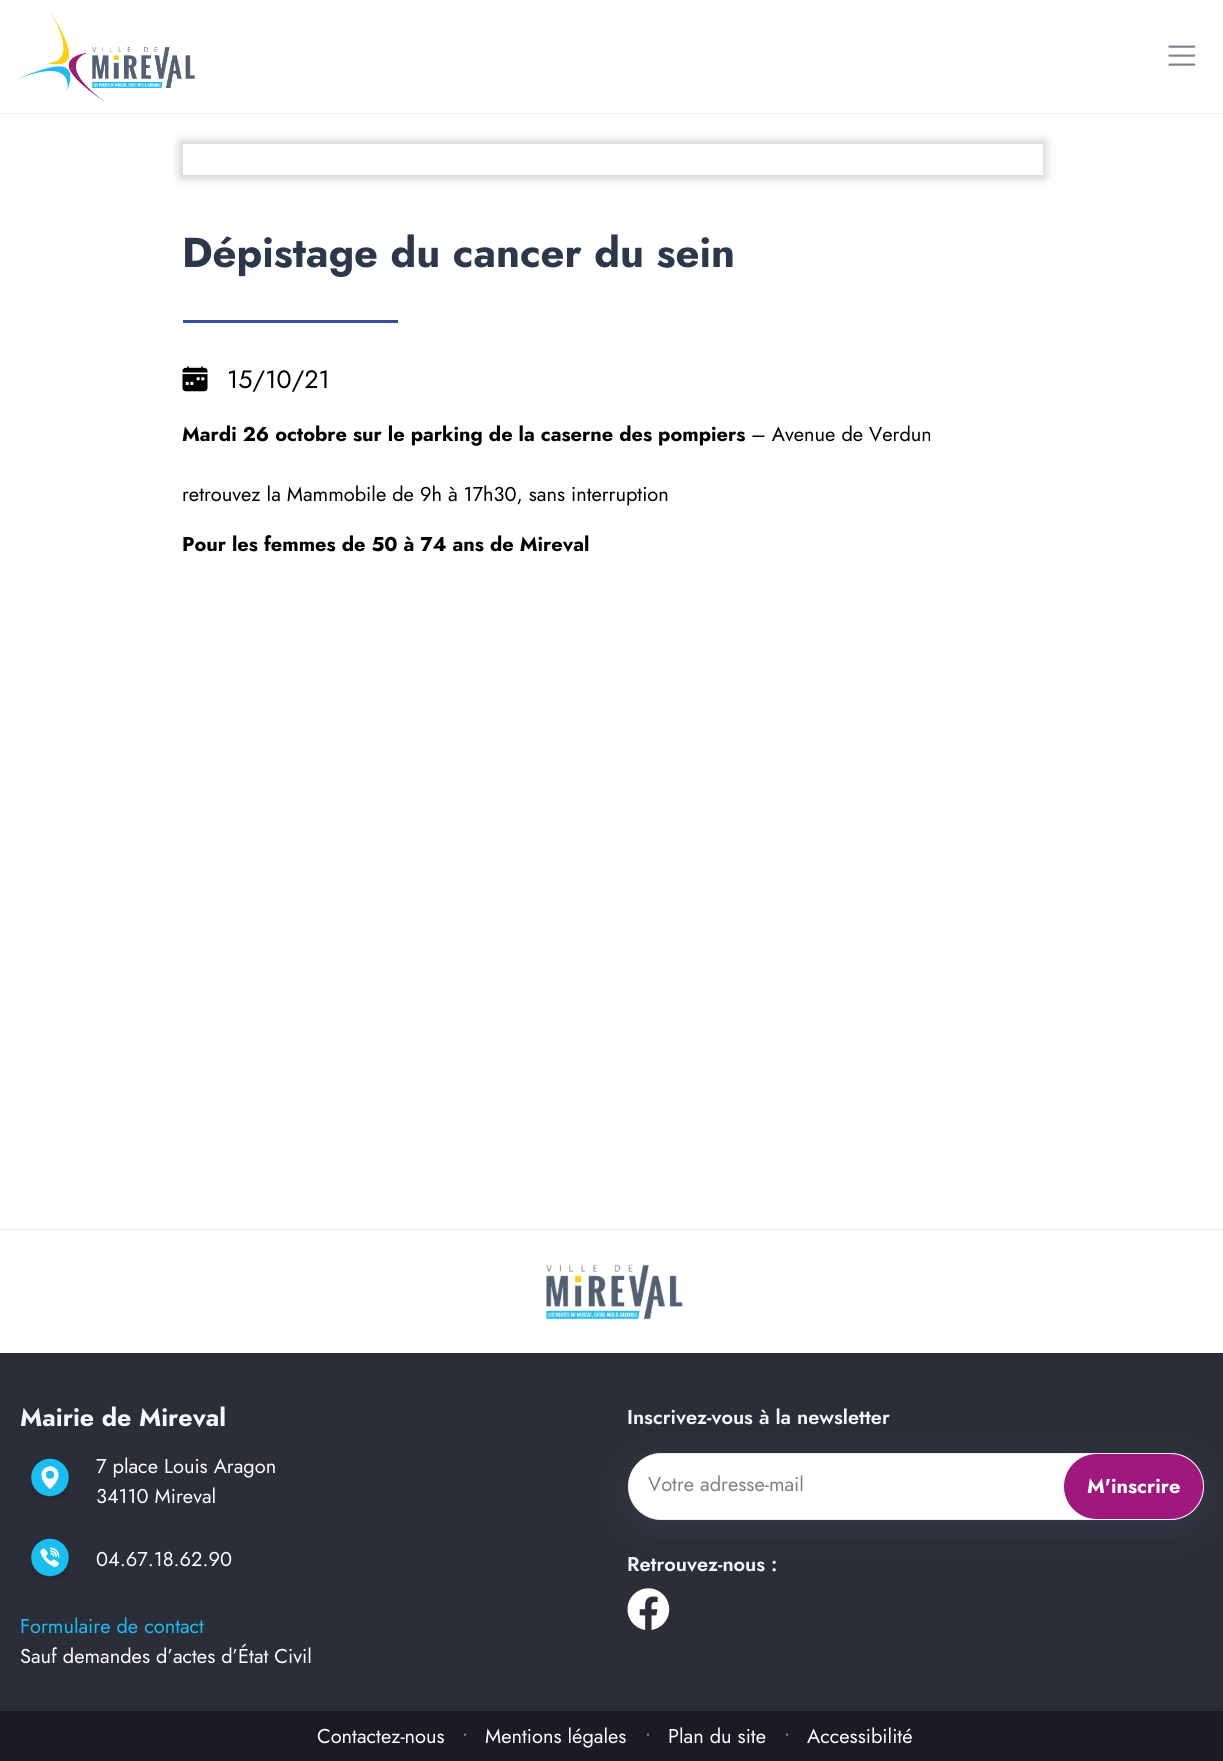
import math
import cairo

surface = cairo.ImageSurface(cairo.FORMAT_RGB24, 1223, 1761)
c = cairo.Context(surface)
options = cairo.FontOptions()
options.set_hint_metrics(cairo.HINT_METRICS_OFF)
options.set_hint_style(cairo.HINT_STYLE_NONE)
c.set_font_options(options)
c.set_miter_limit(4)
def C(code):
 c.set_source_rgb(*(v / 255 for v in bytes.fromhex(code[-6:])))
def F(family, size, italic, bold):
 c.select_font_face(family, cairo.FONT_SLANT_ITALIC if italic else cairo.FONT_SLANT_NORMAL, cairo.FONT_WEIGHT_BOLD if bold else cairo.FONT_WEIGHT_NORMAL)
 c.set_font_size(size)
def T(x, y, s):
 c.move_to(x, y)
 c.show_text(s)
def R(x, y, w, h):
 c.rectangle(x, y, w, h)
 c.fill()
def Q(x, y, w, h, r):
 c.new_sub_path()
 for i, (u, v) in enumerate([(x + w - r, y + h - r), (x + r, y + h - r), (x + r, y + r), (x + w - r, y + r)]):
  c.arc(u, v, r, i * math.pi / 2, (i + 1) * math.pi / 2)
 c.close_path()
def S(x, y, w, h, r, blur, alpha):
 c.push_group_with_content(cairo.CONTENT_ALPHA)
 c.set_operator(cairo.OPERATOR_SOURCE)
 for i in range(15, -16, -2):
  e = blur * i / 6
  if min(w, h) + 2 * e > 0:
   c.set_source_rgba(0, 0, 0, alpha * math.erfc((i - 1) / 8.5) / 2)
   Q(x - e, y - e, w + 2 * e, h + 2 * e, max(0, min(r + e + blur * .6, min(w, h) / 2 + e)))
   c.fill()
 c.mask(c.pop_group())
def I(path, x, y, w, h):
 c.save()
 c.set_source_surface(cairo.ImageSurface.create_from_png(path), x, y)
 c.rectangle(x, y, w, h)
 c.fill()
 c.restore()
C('ffffff')
c.paint()
C('f1f1f1')
R(0,113,1223,1)
I('1.png',16,10,179,93)
I('2.png',1168,45,28,21)
c.save()
c.set_fill_rule(cairo.FILL_RULE_EVEN_ODD)
c.new_path()
c.move_to(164,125)
c.line_to(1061,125)
c.line_to(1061,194)
c.line_to(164,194)
c.close_path()
c.move_to(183,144)
c.line_to(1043,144)
c.line_to(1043,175)
c.line_to(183,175)
c.close_path()
c.clip()
C('000000')
S(180,141,865,37,0,5,.2)
c.restore()
F('Jost',41.75,0,1)
C('2d374b')
T(182,267,'Dépistage du cancer du sein')
C('344d9d')
R(183,320,215,3)
I('3.png',182,366,26,26)
F('Jost',25,0,0)
C('000000')
T(227,388,'15/10/21')
F('Jost',20,0,1)
T(182,441,'Mardi 26 octobre sur le parking de la caserne des pompiers')
F('Jost',20,0,0)
T(751,441,'– Avenue de Verdun')
T(182,501,'retrouvez la Mammobile de 9h à 17h30, sans interruption')
F('Jost',20,0,1)
T(182,551,'Pour les femmes de 50 à 74 ans de Mireval')
C('eaecef')
R(0,1229,1223,1)
I('4.png',546,1264,137,56)
C('2b2d38')
R(0,1353,1223,358)
F('Jost',25,0,1)
C('f5f7fa')
T(20,1426,'Mairie de Mireval')
I('5.png',31,1458,38,42)
F('Jost',20,0,0)
C('ffffff')
T(96,1473,'7 place Louis Aragon')
T(96,1503,'34110 Mireval')
I('6.png',31,1538,38,42)
T(96,1566,'04.67.18.62.90')
C('1bbef0')
T(20,1633,'Formulaire de contact')
C('ffffff')
T(20,1663,'Sauf demandes d’actes d’État Civil')
C('8c98a4')
S(628,1460,576,68,34,15,.12)
F('Jost SemiBold',20,0,0)
C('f5f7fa')
T(627,1424,'Inscrivez-vous à la newsletter')
C('ffffff')
Q(628,1453,576,67,33.5)
c.fill()
Q(628.5,1453.5,575,66,33)
c.set_source_rgba(0.863,0.878,0.898,0.6)
c.set_line_width(1)
c.stroke()
C('ffffff')
Q(629,1454,435,62,31)
c.fill()
F('Jost',20,0,0)
C('808080')
T(648,1491,'Votre adresse-mail')
C('a0187e')
Q(1065.5,1455.5,136,62,31)
c.fill_preserve()
c.set_line_width(3)
c.stroke()
F('Jost',20,0,1)
C('ffffff')
T(1087,1493,'M\'inscrire')
F('Jost SemiBold',20,0,0)
C('f5f7fa')
T(627,1571,'Retrouvez-nous :')
I('7.png',627,1588,43,42)
C('1a1b24')
R(0,1711,1223,50)
F('Jost',20,0,0)
C('ffffff')
T(317,1743,'Contactez-nous')
C('8d8d92')
T(462,1743,'•')
C('ffffff')
T(485,1743,'Mentions légales')
C('8d8d92')
T(645,1743,'•')
C('ffffff')
T(668,1743,'Plan du site')
C('8d8d92')
T(784,1743,'•')
C('ffffff')
T(807,1743,'Accessibilité')
surface.write_to_png('o.png')
